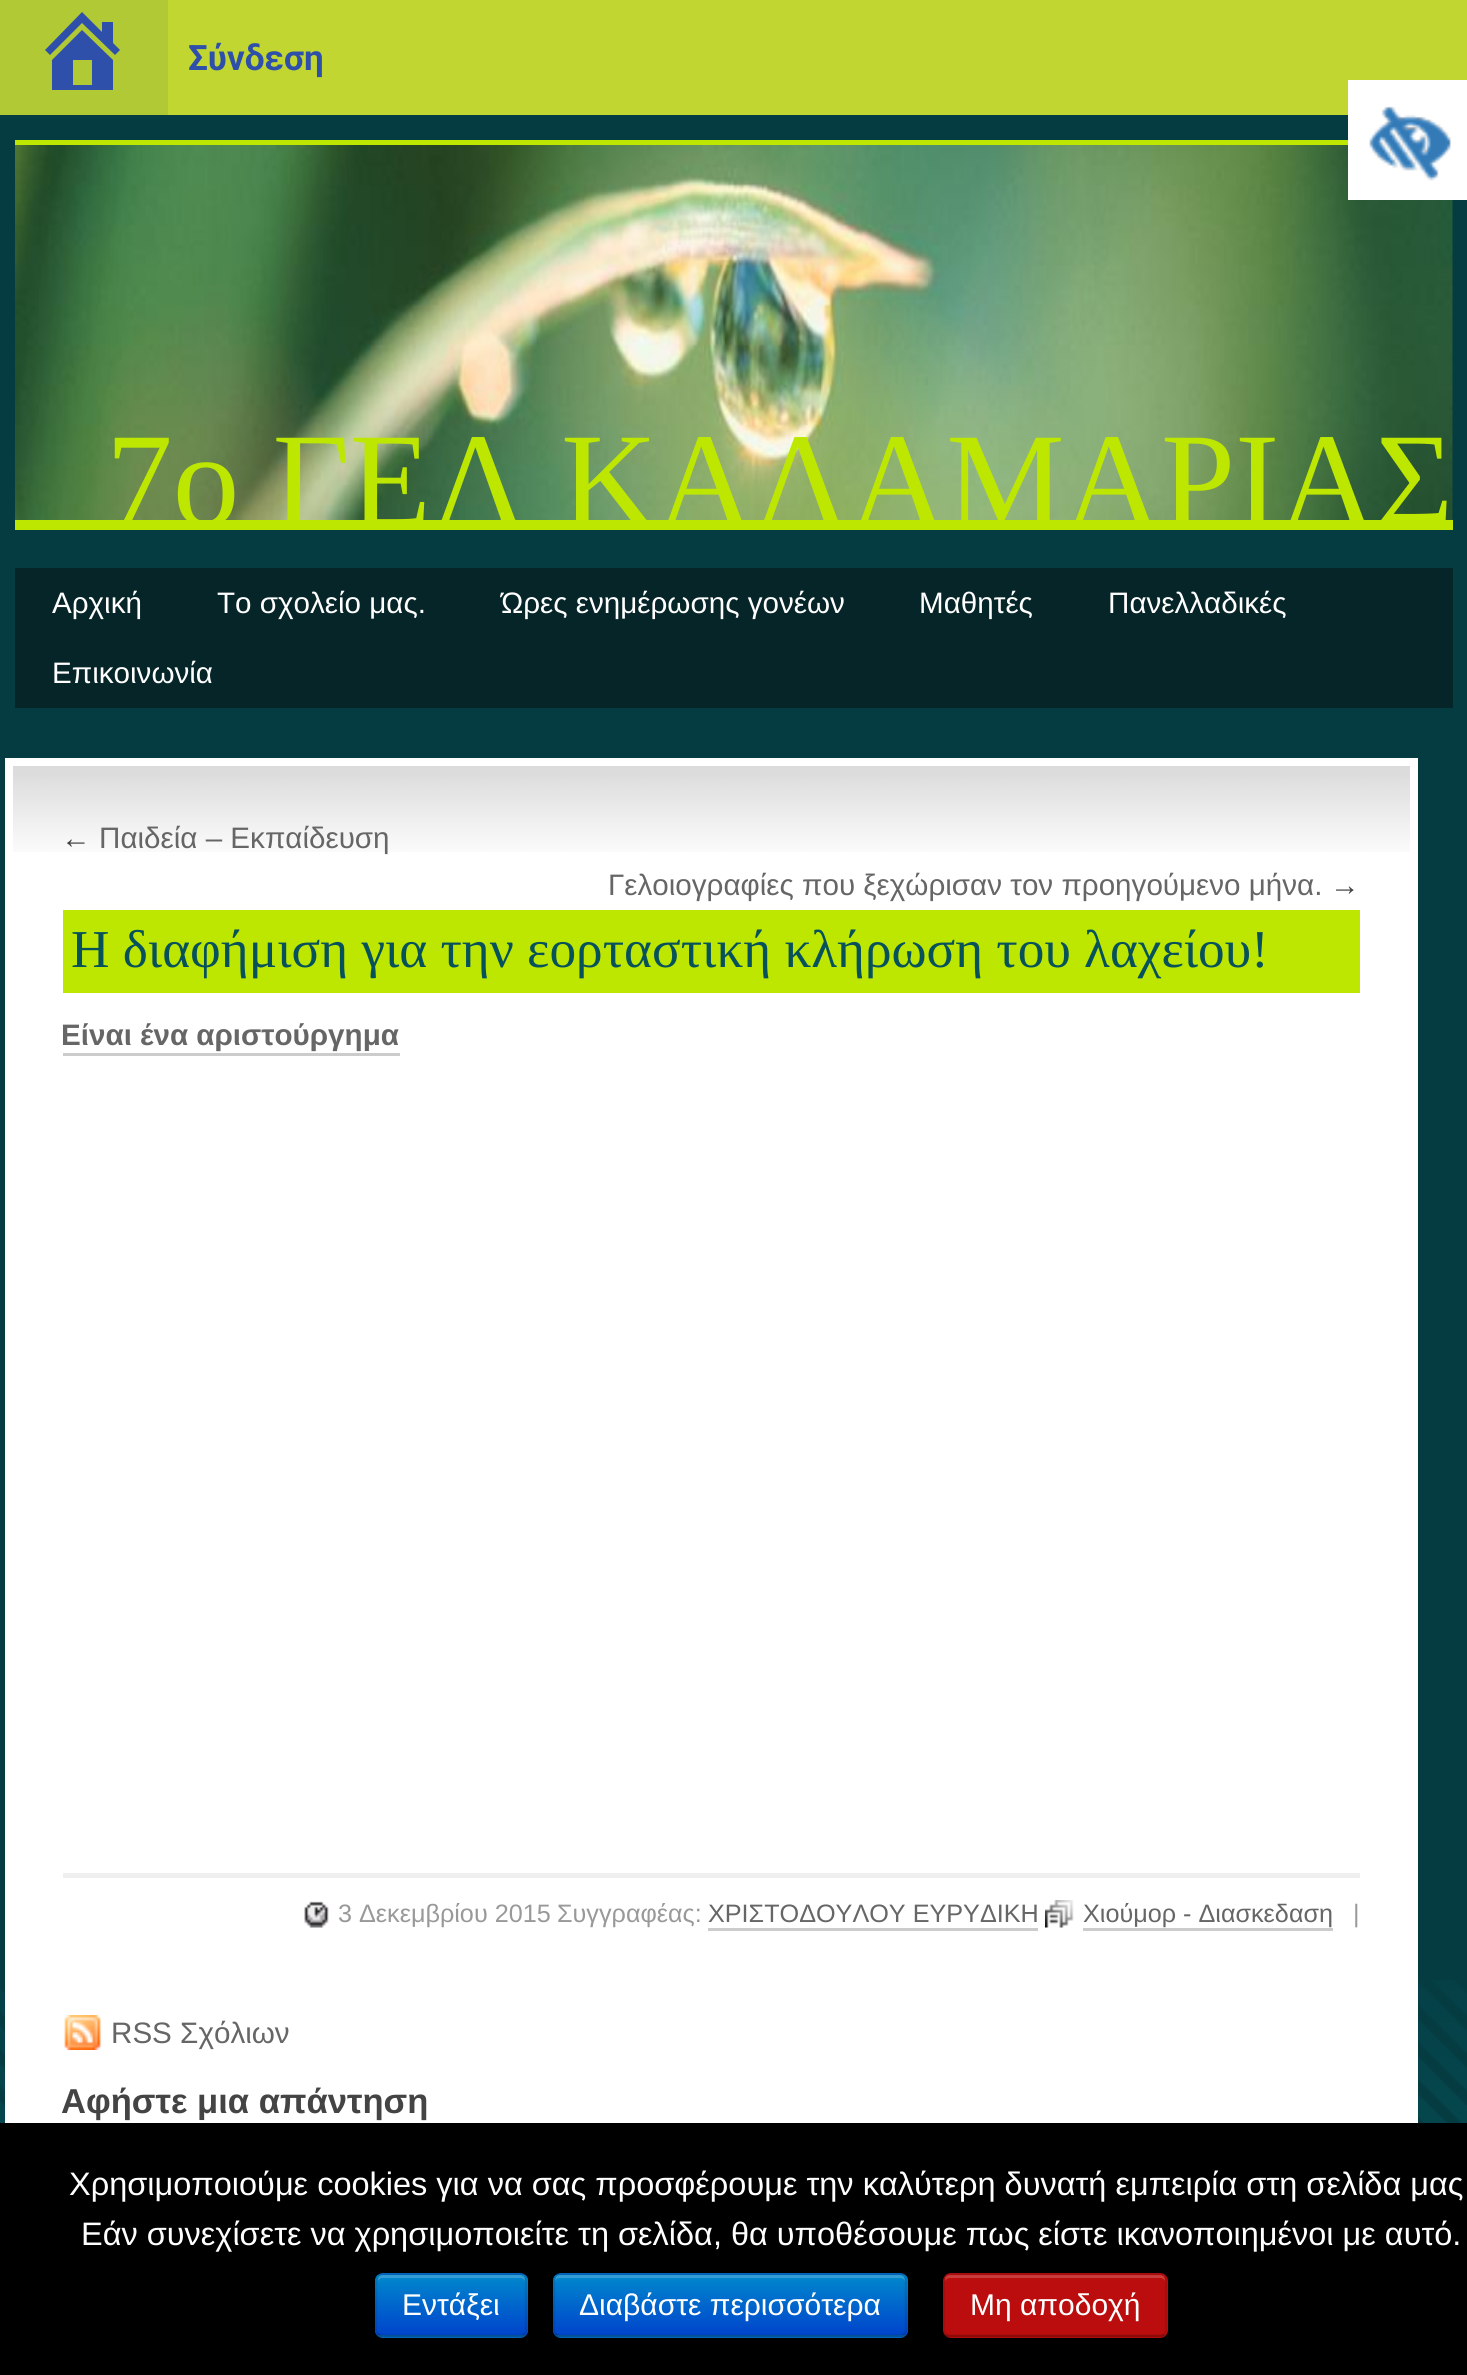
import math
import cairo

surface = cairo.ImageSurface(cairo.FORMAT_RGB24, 1467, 2375)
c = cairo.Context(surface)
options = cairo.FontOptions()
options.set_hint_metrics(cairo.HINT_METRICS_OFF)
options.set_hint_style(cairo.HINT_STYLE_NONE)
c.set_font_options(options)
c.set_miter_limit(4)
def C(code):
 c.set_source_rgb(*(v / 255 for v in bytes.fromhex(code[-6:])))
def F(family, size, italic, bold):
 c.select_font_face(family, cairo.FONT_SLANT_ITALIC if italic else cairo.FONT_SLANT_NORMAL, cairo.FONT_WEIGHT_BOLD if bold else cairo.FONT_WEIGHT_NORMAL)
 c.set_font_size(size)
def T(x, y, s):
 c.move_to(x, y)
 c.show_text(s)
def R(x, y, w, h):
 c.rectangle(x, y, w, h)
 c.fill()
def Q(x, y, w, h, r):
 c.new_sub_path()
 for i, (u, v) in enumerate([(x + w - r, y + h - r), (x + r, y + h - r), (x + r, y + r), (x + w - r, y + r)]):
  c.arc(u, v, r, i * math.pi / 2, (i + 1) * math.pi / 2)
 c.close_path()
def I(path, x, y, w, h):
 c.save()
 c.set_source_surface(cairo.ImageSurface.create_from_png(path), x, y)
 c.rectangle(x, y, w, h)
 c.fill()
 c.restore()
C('053c42')
c.paint()
I('1.png',0,1980,1467,143)
C('c1d630')
R(168,0,1299,115)
C('b1c935')
R(0,0,168,115)
C('2e50aa')
c.new_path()
c.move_to(113,43)
c.line_to(120,50)
c.line_to(115,55)
c.line_to(82,23)
c.line_to(50,55)
c.line_to(45,50)
c.line_to(82,12)
c.line_to(102,32)
c.line_to(102,22)
c.line_to(113,22)
c.close_path()
c.move_to(82,30)
c.line_to(113,60)
c.line_to(113,90)
c.line_to(52,90)
c.line_to(52,60)
c.close_path()
c.move_to(92,85)
c.line_to(92,60)
c.line_to(73,60)
c.line_to(73,85)
c.close_path()
c.fill()
F('Roboto',35,0,1)
T(188,70,'Σύνδεση')
I('3.png',15,145,1438,375)
C('ffffff')
R(1348,80,119,120)
I('2.png',1369,106,82,75)
C('bde701')
R(15,140,1333,5)
R(15,520,1438,10)
F('Liberation Serif',133.25,0,0)
T(106,525,'7ο ΓΕΛ ΚΑΛΑΜΑΡΙΑΣ')
C('062528')
R(15,568,1438,140)
F('Liberation Sans',29.6,0,0)
C('ffffff')
T(52,613,'Αρχική')
T(217,613,'Το σχολείο μας.')
T(501,613,'Ώρες ενημέρωσης γονέων')
T(919,613,'Μαθητές')
T(1108,613,'Πανελλαδικές')
T(52,683,'Επικοινωνία')
R(13,852,1397,1271)
I('4.png',13,766,1397,86)
c.rectangle(9,762,1405,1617)
c.set_line_width(8)
c.stroke()
C('444444')
T(61,848,'←')
C('666666')
T(99,848,'Παιδεία – Εκπαίδευση')
T(608,895,'Γελοιογραφίες που ξεχώρισαν τον προηγούμενο μήνα.')
C('444444')
T(1330,895,'→')
C('bde701')
R(63,910,1297,83)
F('Liberation Serif',53.25,0,0)
C('07515a')
T(71,967,'Η διαφήμιση για την εορταστική κλήρωση του λαχείου!')
C('efefef')
R(63,1873,1297,5)
F('Liberation Sans',29.6,0,1)
C('666666')
T(61,1045,'Είναι ένα αριστούργημα')
C('cccccc')
R(63,1053,337,3)
I('5.png',304,1901,25,27)
F('Liberation Sans',25.2,0,0)
C('999999')
T(338,1922,'3 Δεκεμβρίου 2015')
T(557,1922,'Συγγραφέας:')
C('666666')
T(708,1922,'ΧΡΙΣΤΟΔΟΥΛΟΥ ΕΥΡΥΔΙΚΗ')
C('cccccc')
R(708,1928,330,3)
I('6.png',1045,1900,29,28)
C('666666')
T(1083,1922,'Χιούμορ - Διασκεδαση')
C('cccccc')
R(1083,1928,250,3)
C('999999')
T(1353,1922,'|')
I('7.png',64,2015,37,35)
F('Liberation Sans',29.6,0,0)
C('666666')
T(111,2043,'RSS Σχόλιων')
F('Liberation Sans',34.6,0,1)
C('444444')
T(61,2113,'Αφήστε μια απάντηση')
C('000000')
R(0,2123,1467,252)
F('Liberation Sans',32.5,0,0)
C('ffffff')
T(69,2195,'Χρησιμοποιούμε cookies για να σας προσφέρουμε την καλύτερη δυνατή εμπειρία στη σελίδα μας')
T(81,2245,'Εάν συνεχίσετε να χρησιμοποιείτε τη σελίδα, θα υποθέσουμε πως είστε ικανοποιημένοι με αυτό.')
C('006dcc')
Q(375,2273,153,65,8)
c.fill()
c.save()
Q(375,2273,153,65,8)
c.clip()
gradient = cairo.LinearGradient(451,2275,451,2335)
gradient.add_color_stop_rgba(0,0,0.533,0.8,1)
gradient.add_color_stop_rgba(1,0,0.267,0.8,1)
c.set_source(gradient)
R(375,2275,153,60)
c.restore()
c.set_source_rgba(1,1,1,0.2)
c.new_path()
c.move_to(382,2278)
c.line_to(520,2278)
c.curve_to(523,2278,525,2280,525,2282)
c.line_to(525,2280)
c.curve_to(525,2277,523,2275,520,2275)
c.line_to(383,2275)
c.curve_to(380,2275,378,2277,378,2280)
c.line_to(378,2282)
c.curve_to(378,2280,380,2278,382,2278)
c.close_path()
c.fill()
c.new_path()
c.move_to(524.5,2334.5)
c.curve_to(523,2335.5,521.5,2336,520,2336)
c.line_to(382.5,2336)
c.curve_to(381,2336,379.5,2335.5,378,2334.5)
c.set_source_rgba(0,0,0,0.25)
c.set_line_width(2.5)
c.stroke()
c.new_path()
c.move_to(378,2334.5)
c.curve_to(377,2333,376,2331.5,376,2330)
c.line_to(376,2280)
c.curve_to(376,2278.5,377,2277,378,2275.5)
c.curve_to(379.5,2274.5,381,2274,382.5,2274)
c.line_to(520,2274)
c.curve_to(521.5,2274,523,2274.5,524.5,2275.5)
c.curve_to(525.5,2277,526,2278.5,526,2280)
c.line_to(526,2330)
c.curve_to(526,2331.5,525.5,2333,524.5,2334.5)
c.set_source_rgba(0,0,0,0.1)
c.stroke()
F('Liberation Sans',30,0,0)
C('ffffff')
T(402,2315,'Εντάξει')
C('006dcc')
Q(553,2273,355,65,8)
c.fill()
c.save()
Q(553,2273,355,65,8)
c.clip()
gradient = cairo.LinearGradient(730,2275,730,2335)
gradient.add_color_stop_rgba(0,0,0.533,0.8,1)
gradient.add_color_stop_rgba(1,0,0.267,0.8,1)
c.set_source(gradient)
R(553,2275,355,60)
c.restore()
c.set_source_rgba(1,1,1,0.2)
c.new_path()
c.move_to(560,2278)
c.line_to(900,2278)
c.curve_to(903,2278,905,2280,905,2282)
c.curve_to(905,2279,904,2275,900,2275)
c.line_to(560,2275)
c.curve_to(556,2275,555,2279,555,2282)
c.curve_to(555,2280,557,2278,560,2278)
c.close_path()
c.fill()
c.new_path()
c.move_to(904.5,2334.5)
c.curve_to(903,2335.5,901.5,2336,900,2336)
c.line_to(560,2336)
c.curve_to(558.5,2336,557,2335.5,555.5,2334.5)
c.set_source_rgba(0,0,0,0.25)
c.stroke()
c.new_path()
c.move_to(555.5,2334.5)
c.curve_to(554.5,2333,554,2331.5,554,2330)
c.line_to(554,2280)
c.curve_to(554,2278.5,554.5,2277,555.5,2275.5)
c.curve_to(557,2274.5,558.5,2274,560,2274)
c.line_to(900,2274)
c.curve_to(901.5,2274,903,2274.5,904.5,2275.5)
c.curve_to(905.5,2277,906,2278.5,906,2280)
c.line_to(906,2330)
c.curve_to(906,2331.5,905.5,2333,904.5,2334.5)
c.set_source_rgba(0,0,0,0.1)
c.stroke()
C('ffffff')
T(579,2315,'Διαβάστε περισσότερα')
C('bb0d0d')
Q(943,2273,225,65,8)
c.fill()
C('c93d3d')
c.new_path()
c.move_to(950,2278)
c.line_to(1160,2278)
c.curve_to(1163,2278,1165,2280,1165,2282)
c.line_to(1165,2280)
c.curve_to(1165,2277,1163,2275,1160,2275)
c.line_to(950,2275)
c.curve_to(947,2275,945,2277,945,2280)
c.line_to(945,2282)
c.curve_to(945,2280,947,2278,950,2278)
c.close_path()
c.fill()
c.new_path()
c.move_to(1164.5,2334.5)
c.curve_to(1163,2335.5,1161.5,2336,1160,2336)
c.line_to(950,2336)
c.curve_to(948.5,2336,947,2335.5,945.5,2334.5)
c.set_source_rgba(0,0,0,0.25)
c.stroke()
c.new_path()
c.move_to(945.5,2334.5)
c.curve_to(944.5,2333,944,2331.5,944,2330)
c.line_to(944,2280)
c.curve_to(944,2278.5,944.5,2277,945.5,2275.5)
c.curve_to(947,2274.5,948.5,2274,950,2274)
c.line_to(1160,2274)
c.curve_to(1161.5,2274,1163,2274.5,1164.5,2275.5)
c.curve_to(1165.5,2277,1166,2278.5,1166,2280)
c.line_to(1166,2330)
c.curve_to(1166,2331.5,1165.5,2333,1164.5,2334.5)
c.set_source_rgba(0,0,0,0.1)
c.stroke()
C('ffffff')
T(970,2315,'Μη αποδοχή')
surface.write_to_png('o.png')
